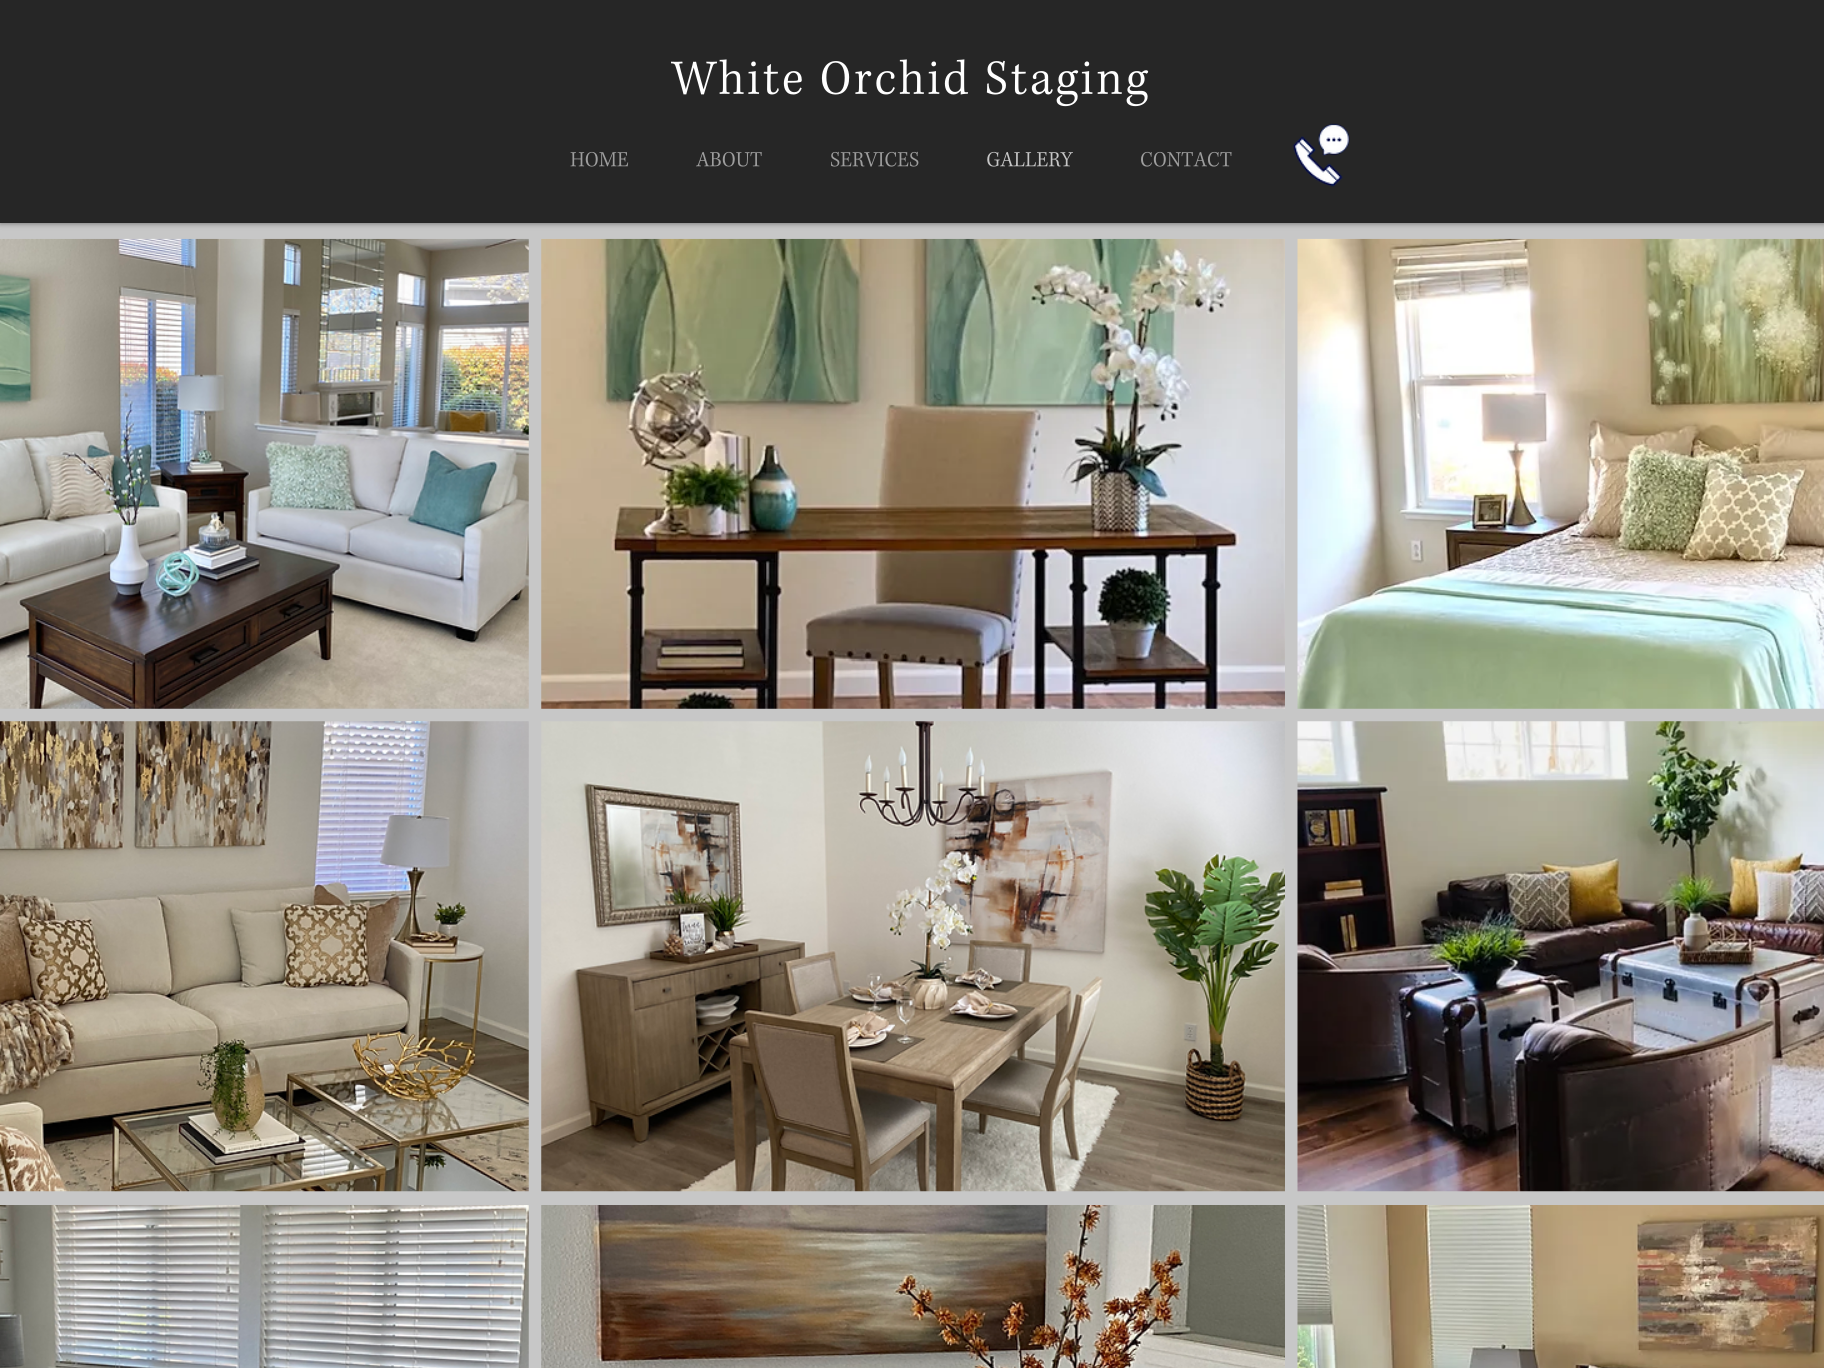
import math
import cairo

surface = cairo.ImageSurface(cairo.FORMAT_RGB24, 1824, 1368)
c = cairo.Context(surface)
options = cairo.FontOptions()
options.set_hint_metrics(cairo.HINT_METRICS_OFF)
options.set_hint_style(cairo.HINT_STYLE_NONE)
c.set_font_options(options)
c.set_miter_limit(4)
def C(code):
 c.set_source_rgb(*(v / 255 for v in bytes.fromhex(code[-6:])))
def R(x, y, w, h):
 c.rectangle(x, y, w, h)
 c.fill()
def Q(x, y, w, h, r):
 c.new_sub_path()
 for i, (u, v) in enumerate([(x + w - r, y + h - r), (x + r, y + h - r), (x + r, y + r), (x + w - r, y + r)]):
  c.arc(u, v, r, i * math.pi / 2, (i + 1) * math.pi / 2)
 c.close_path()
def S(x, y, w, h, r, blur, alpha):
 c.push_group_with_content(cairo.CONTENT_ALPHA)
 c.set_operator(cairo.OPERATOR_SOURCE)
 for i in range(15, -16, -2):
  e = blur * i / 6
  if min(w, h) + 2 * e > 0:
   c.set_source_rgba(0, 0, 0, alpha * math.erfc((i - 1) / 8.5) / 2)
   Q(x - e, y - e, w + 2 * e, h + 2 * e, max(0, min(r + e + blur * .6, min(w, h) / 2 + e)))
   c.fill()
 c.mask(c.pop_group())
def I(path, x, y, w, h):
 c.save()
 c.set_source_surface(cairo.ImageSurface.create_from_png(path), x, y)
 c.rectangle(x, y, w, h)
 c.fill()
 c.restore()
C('c7c7c7')
c.paint()
C('000000')
S(0,0,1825,223,0,3,.5)
C('262626')
R(0,0,1824,223)
I('1.png',671,59,478,48)
I('2.png',570,151,59,16)
I('3.png',696,151,66,16)
I('4.png',831,151,88,16)
I('5.png',987,151,86,16)
I('6.png',1141,151,91,16)
I('7.png',1292,123,58,64)
I('8.png',0,238,529,471)
I('9.png',541,238,744,471)
I('10.png',1297,238,527,471)
I('11.png',0,721,529,471)
I('12.png',541,721,744,471)
I('13.png',1297,721,527,471)
I('14.png',0,1205,529,163)
I('15.png',541,1205,744,163)
I('16.png',1297,1205,527,163)
surface.write_to_png('o.png')
